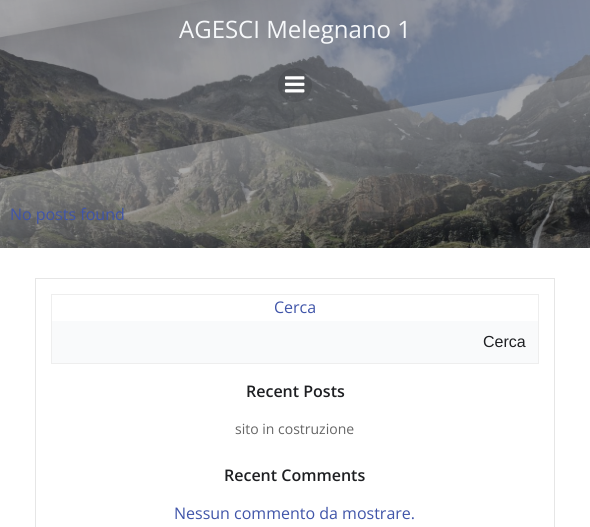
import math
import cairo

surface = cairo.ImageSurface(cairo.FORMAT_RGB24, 590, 527)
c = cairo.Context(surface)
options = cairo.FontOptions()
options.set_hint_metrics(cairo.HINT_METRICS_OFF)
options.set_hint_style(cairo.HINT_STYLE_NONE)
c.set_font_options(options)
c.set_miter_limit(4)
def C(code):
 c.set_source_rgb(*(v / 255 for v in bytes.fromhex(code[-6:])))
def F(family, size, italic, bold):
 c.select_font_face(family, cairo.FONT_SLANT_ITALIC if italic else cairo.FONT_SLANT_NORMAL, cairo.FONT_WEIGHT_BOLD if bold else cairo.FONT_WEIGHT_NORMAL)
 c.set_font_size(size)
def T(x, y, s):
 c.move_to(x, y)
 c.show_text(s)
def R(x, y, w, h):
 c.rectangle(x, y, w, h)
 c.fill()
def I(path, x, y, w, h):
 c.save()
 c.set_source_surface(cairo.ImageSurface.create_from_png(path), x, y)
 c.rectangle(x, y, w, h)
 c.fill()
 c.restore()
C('ffffff')
c.paint()
I('1.png',0,0,590,248)
I('2.png',0,0,590,248)
F('Open Sans',24,0,0)
C('f6f8fa')
T(179,38,'AGESCI Melegnano 1')
c.set_source_rgba(0,0,0,0.1)
c.new_path()
c.arc(295,85,17,0,2 * math.pi)
c.fill()
I('3.png',285,76,20,17)
F('Open Sans',16,0,0)
C('4055a9')
T(10,220,'No posts found')
c.rectangle(35.5,278.5,519,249)
C('e6e6e6')
c.set_line_width(1)
c.stroke()
c.rectangle(51.5,294.5,487,69)
C('eeeeee')
c.stroke()
C('4055a9')
T(274,313,'Cerca')
C('f9fafb')
R(52,321,486,42)
F('Liberation Sans',16,0,0)
C('1e1f22')
T(483,347,'Cerca')
F('Open Sans SemiBold',16,0,0)
T(246,397,'Recent Posts')
F('Open Sans',14,0,0)
C('666666')
T(235,434,'sito in costruzione')
F('Open Sans SemiBold',16,0,0)
C('1e1f22')
T(224,481,'Recent Comments')
F('Open Sans',16,0,0)
C('4055a9')
T(174,519,'Nessun commento da mostrare.')
surface.write_to_png('o.png')
